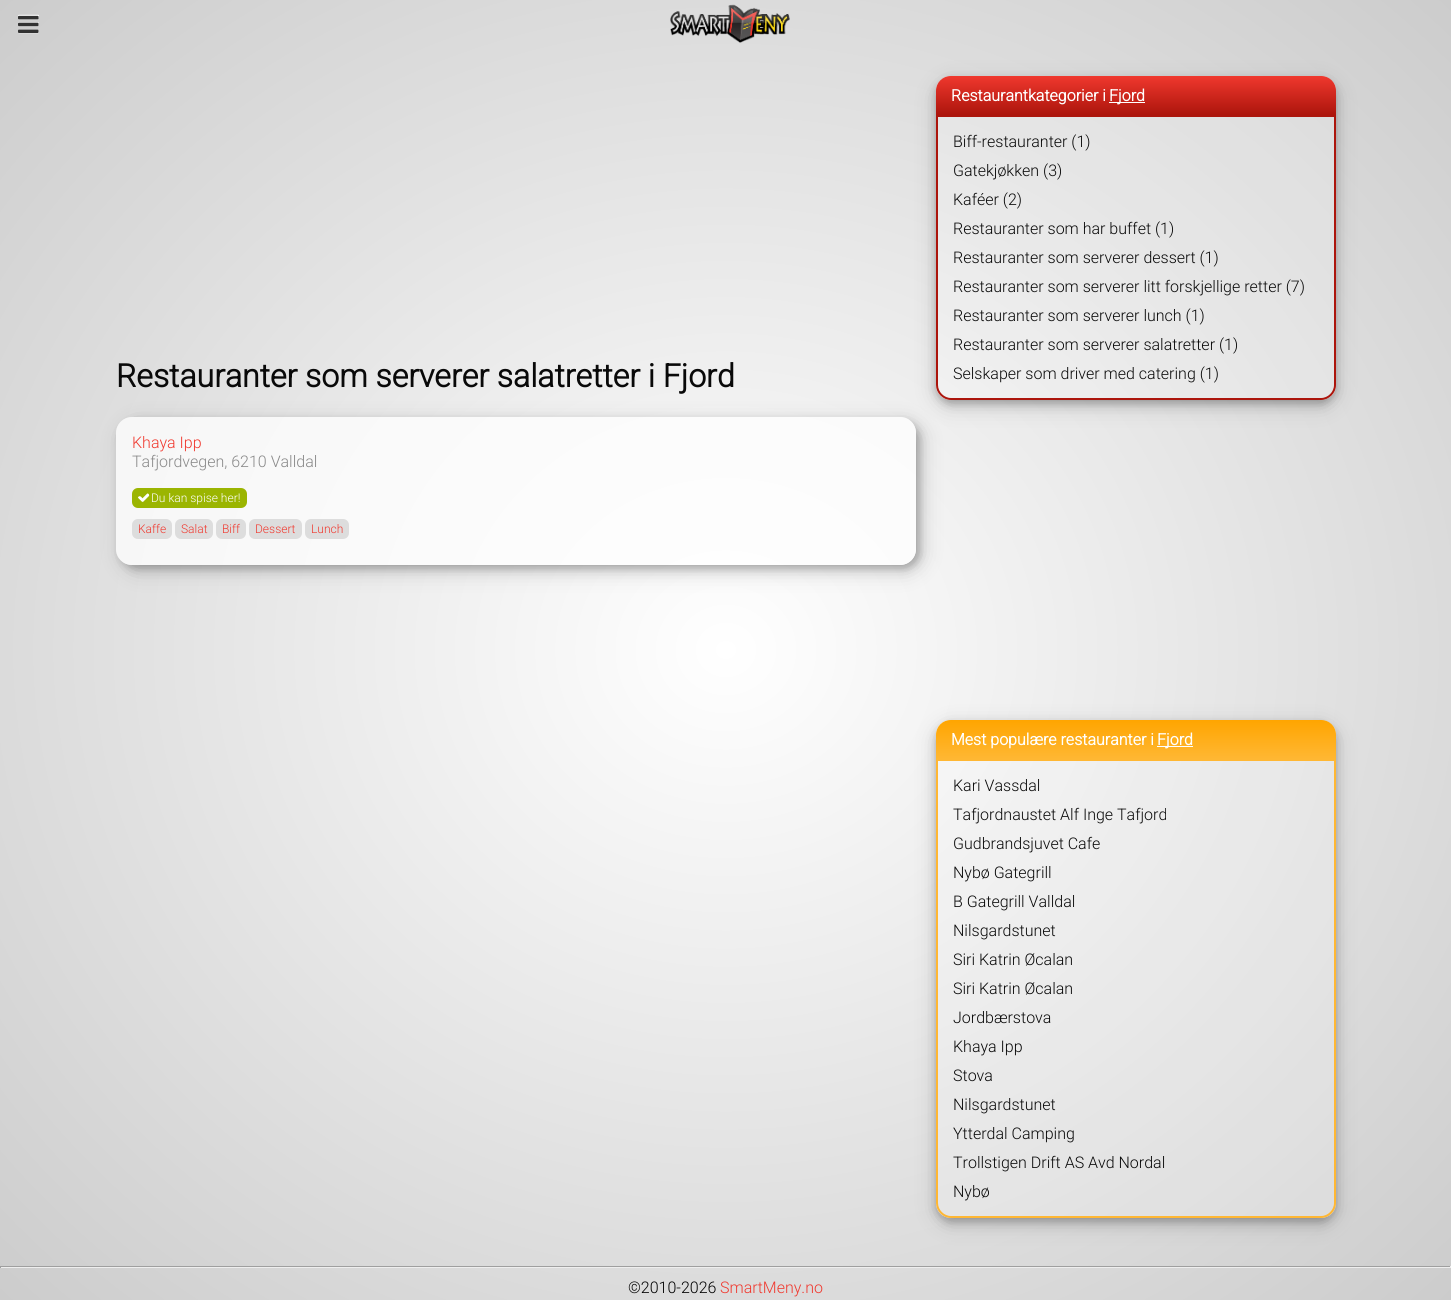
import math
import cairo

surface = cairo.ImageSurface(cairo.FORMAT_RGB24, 1451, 1300)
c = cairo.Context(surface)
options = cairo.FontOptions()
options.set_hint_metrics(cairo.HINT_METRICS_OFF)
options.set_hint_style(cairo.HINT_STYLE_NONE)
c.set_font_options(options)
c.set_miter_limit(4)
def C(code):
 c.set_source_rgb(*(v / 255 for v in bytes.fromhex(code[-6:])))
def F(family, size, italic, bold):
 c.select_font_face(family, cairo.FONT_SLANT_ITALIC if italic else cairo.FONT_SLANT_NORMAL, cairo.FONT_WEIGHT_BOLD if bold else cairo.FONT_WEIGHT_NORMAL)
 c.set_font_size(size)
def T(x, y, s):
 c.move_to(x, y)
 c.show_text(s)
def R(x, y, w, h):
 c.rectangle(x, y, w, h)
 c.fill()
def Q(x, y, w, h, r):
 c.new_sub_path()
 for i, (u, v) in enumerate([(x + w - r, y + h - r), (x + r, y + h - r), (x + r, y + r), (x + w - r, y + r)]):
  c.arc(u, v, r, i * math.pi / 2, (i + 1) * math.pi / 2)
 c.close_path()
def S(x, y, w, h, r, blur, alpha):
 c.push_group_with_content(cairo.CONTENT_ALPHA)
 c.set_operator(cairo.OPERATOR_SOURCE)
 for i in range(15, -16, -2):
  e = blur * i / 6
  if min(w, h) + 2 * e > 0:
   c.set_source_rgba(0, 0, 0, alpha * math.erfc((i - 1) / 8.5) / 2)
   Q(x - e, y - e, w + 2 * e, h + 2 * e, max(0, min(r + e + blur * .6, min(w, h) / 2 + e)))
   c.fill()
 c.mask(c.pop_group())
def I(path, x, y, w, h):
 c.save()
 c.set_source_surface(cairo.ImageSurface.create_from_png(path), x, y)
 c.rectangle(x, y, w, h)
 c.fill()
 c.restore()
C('ffffff')
c.paint()
gradient = cairo.RadialGradient(0,0,0,0,0,1)
gradient.set_matrix(cairo.Matrix(1 / 1026, 0, 0, 1 / 919, -1 * 726 / 1026, -1 * 650 / 919))
gradient.add_color_stop_rgba(0,1,1,1,1)
gradient.add_color_stop_rgba(1,0.8,0.8,0.8,1)
c.set_source(gradient)
R(0,0,1451,1300)
I('1.png',18,14,21,20)
I('2.png',18,15,21,18)
I('3.png',670,4,120,39)
c.save()
c.set_fill_rule(cairo.FILL_RULE_EVEN_ODD)
c.new_path()
c.move_to(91,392)
c.line_to(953,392)
c.line_to(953,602)
c.line_to(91,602)
c.close_path()
c.move_to(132,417)
c.line_to(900,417)
c.curve_to(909,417,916,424,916,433)
c.line_to(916,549)
c.curve_to(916,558,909,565,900,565)
c.line_to(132,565)
c.curve_to(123,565,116,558,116,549)
c.line_to(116,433)
c.curve_to(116,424,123,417,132,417)
c.close_path()
c.clip()
C('000000')
S(122,423,800,148,16,10,.19)
c.restore()
F('Roboto',32,0,1)
C('090909')
T(116,387,'Restauranter som serverer salatretter i Fjord')
c.save()
c.set_fill_rule(cairo.FILL_RULE_EVEN_ODD)
c.new_path()
c.move_to(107,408)
c.line_to(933,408)
c.line_to(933,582)
c.line_to(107,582)
c.close_path()
c.move_to(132,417)
c.line_to(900,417)
c.curve_to(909,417,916,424,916,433)
c.line_to(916,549)
c.curve_to(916,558,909,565,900,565)
c.line_to(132,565)
c.curve_to(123,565,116,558,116,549)
c.line_to(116,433)
c.curve_to(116,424,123,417,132,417)
c.close_path()
c.clip()
C('010000')
S(120,421,800,148,16,4,.2)
c.restore()
c.set_source_rgba(1,1,1,0.75)
Q(116,417,800,148,16)
c.fill()
F('Roboto Light',16,0,0)
C('f0382e')
T(132,448,'Khaya Ipp')
C('898989')
T(132,467,'Tafjordvegen, 6210 Valldal')
C('9bb501')
Q(132,488,115,20,6)
c.fill()
I('4.png',138,493,11,9)
I('5.png',138,494,12,8)
F('Roboto Light',12,0,0)
C('ffffff')
T(151,502,'Du kan spise her!')
C('dddddd')
Q(132,519,40,20,6)
c.fill()
C('f0382e')
T(138,533,'Kaffe')
C('dddddd')
Q(175,519,38,20,6)
c.fill()
C('f0382e')
T(181,533,'Salat')
C('dddddd')
Q(216,519,30,20,6)
c.fill()
C('f0382e')
T(222,533,'Biff')
C('dddddd')
Q(249,519,53,20,6)
c.fill()
C('f0382e')
T(255,533,'Dessert')
C('dddddd')
Q(305,519,44,20,6)
c.fill()
C('f0382e')
T(311,533,'Lunch')
c.save()
c.set_fill_rule(cairo.FILL_RULE_EVEN_ODD)
c.new_path()
c.move_to(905,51)
c.line_to(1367,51)
c.line_to(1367,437)
c.line_to(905,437)
c.close_path()
c.move_to(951,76)
c.line_to(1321,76)
c.curve_to(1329.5,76,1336,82.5,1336,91)
c.line_to(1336,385)
c.curve_to(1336,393.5,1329.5,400,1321,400)
c.line_to(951,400)
c.curve_to(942.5,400,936,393.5,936,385)
c.line_to(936,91)
c.curve_to(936,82.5,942.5,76,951,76)
c.close_path()
c.clip()
C('000000')
S(936,82,400,324,15,10,.19)
c.restore()
c.save()
c.set_fill_rule(cairo.FILL_RULE_EVEN_ODD)
c.new_path()
c.move_to(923,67)
c.line_to(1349,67)
c.line_to(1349,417)
c.line_to(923,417)
c.close_path()
c.move_to(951,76)
c.line_to(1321,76)
c.curve_to(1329.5,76,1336,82.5,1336,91)
c.line_to(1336,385)
c.curve_to(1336,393.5,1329.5,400,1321,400)
c.line_to(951,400)
c.curve_to(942.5,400,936,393.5,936,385)
c.line_to(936,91)
c.curve_to(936,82.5,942.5,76,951,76)
c.close_path()
c.clip()
C('000000')
S(936,80,400,324,15,4,.2)
c.restore()
gradient = cairo.LinearGradient(1136,76,1136,115)
gradient.add_color_stop_rgba(0,0.941,0.22,0.18,1)
gradient.add_color_stop_rgba(1,0.675,0.082,0.047,1)
c.set_source(gradient)
c.new_path()
c.move_to(951,76)
c.line_to(1321,76)
c.curve_to(1329.5,76,1336,82.5,1336,91)
c.line_to(1336,115)
c.line_to(936,115)
c.line_to(936,91)
c.curve_to(936,82.5,942.5,76,951,76)
c.close_path()
c.fill()
F('Roboto',16,0,1)
C('ffffff')
T(951,101,'Restaurantkategorier i')
R(1109,102,36,1)
T(1109,101,'Fjord')
c.set_source_rgba(1,1,1,0.2)
c.new_path()
c.move_to(937,116)
c.line_to(1335,116)
c.line_to(1335,385)
c.curve_to(1335,392.5,1328.5,399,1321,399)
c.line_to(951,399)
c.curve_to(943.5,399,937,392.5,937,385)
c.close_path()
c.fill_preserve()
C('ac150c')
c.stroke()
F('Roboto Light',16,0,0)
C('090909')
T(953,147,'Biff-restauranter (1)')
T(953,176,'Gatekjøkken (3)')
T(953,205,'Kaféer (2)')
T(953,234,'Restauranter som har buffet (1)')
T(953,263,'Restauranter som serverer dessert (1)')
T(953,292,'Restauranter som serverer litt forskjellige retter (7)')
T(953,321,'Restauranter som serverer lunch (1)')
T(953,350,'Restauranter som serverer salatretter (1)')
T(953,379,'Selskaper som driver med catering (1)')
c.save()
c.set_fill_rule(cairo.FILL_RULE_EVEN_ODD)
c.new_path()
c.move_to(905,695)
c.line_to(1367,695)
c.line_to(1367,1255)
c.line_to(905,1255)
c.close_path()
c.move_to(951,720)
c.line_to(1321,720)
c.curve_to(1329.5,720,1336,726.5,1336,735)
c.line_to(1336,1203)
c.curve_to(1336,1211.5,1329.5,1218,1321,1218)
c.line_to(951,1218)
c.curve_to(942.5,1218,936,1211.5,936,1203)
c.line_to(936,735)
c.curve_to(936,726.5,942.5,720,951,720)
c.close_path()
c.clip()
C('000000')
S(936,726,400,498,15,10,.19)
c.restore()
c.save()
c.set_fill_rule(cairo.FILL_RULE_EVEN_ODD)
c.new_path()
c.move_to(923,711)
c.line_to(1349,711)
c.line_to(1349,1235)
c.line_to(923,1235)
c.close_path()
c.move_to(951,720)
c.line_to(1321,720)
c.curve_to(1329.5,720,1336,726.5,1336,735)
c.line_to(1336,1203)
c.curve_to(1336,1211.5,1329.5,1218,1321,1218)
c.line_to(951,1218)
c.curve_to(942.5,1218,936,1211.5,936,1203)
c.line_to(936,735)
c.curve_to(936,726.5,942.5,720,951,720)
c.close_path()
c.clip()
C('000000')
S(936,724,400,498,15,4,.2)
c.restore()
gradient = cairo.LinearGradient(1136,720,1136,759)
gradient.add_color_stop_rgba(0,1,0.647,0,1)
gradient.add_color_stop_rgba(1,1,0.718,0.2,1)
c.set_source(gradient)
c.new_path()
c.move_to(951,720)
c.line_to(1321,720)
c.curve_to(1329.5,720,1336,726.5,1336,735)
c.line_to(1336,759)
c.line_to(936,759)
c.line_to(936,735)
c.curve_to(936,726.5,942.5,720,951,720)
c.close_path()
c.fill()
F('Roboto',16,0,1)
C('ffffff')
T(951,745,'Mest populære restauranter i')
R(1157,746,36,1)
T(1157,745,'Fjord')
c.set_source_rgba(1,1,1,0.2)
c.new_path()
c.move_to(937,760)
c.line_to(1335,760)
c.line_to(1335,1203)
c.curve_to(1335,1210.5,1328.5,1217,1321,1217)
c.line_to(951,1217)
c.curve_to(943.5,1217,937,1210.5,937,1203)
c.close_path()
c.fill_preserve()
C('ffb733')
c.stroke()
F('Roboto Light',16,0,0)
C('090909')
T(953,791,'Kari Vassdal')
T(953,820,'Tafjordnaustet Alf Inge Tafjord')
T(953,849,'Gudbrandsjuvet Cafe')
T(953,878,'Nybø Gategrill')
T(953,907,'B Gategrill Valldal')
T(953,936,'Nilsgardstunet')
T(953,965,'Siri Katrin Øcalan')
T(953,994,'Siri Katrin Øcalan')
T(953,1023,'Jordbærstova')
T(953,1052,'Khaya Ipp')
T(953,1081,'Stova')
T(953,1110,'Nilsgardstunet')
T(953,1139,'Ytterdal Camping')
T(953,1168,'Trollstigen Drift AS Avd Nordal')
T(953,1197,'Nybø')
C('9f9f9f')
R(0,1266,1451,1)
C('eeeeee')
R(1450,1266,1,2)
R(0,1267,1451,1)
C('9f9f9f')
R(0,1266,1,2)
C('000000')
T(628,1293,'©2010-2026')
C('f0382e')
T(720,1293,'SmartMeny.no')
surface.write_to_png('o.png')
